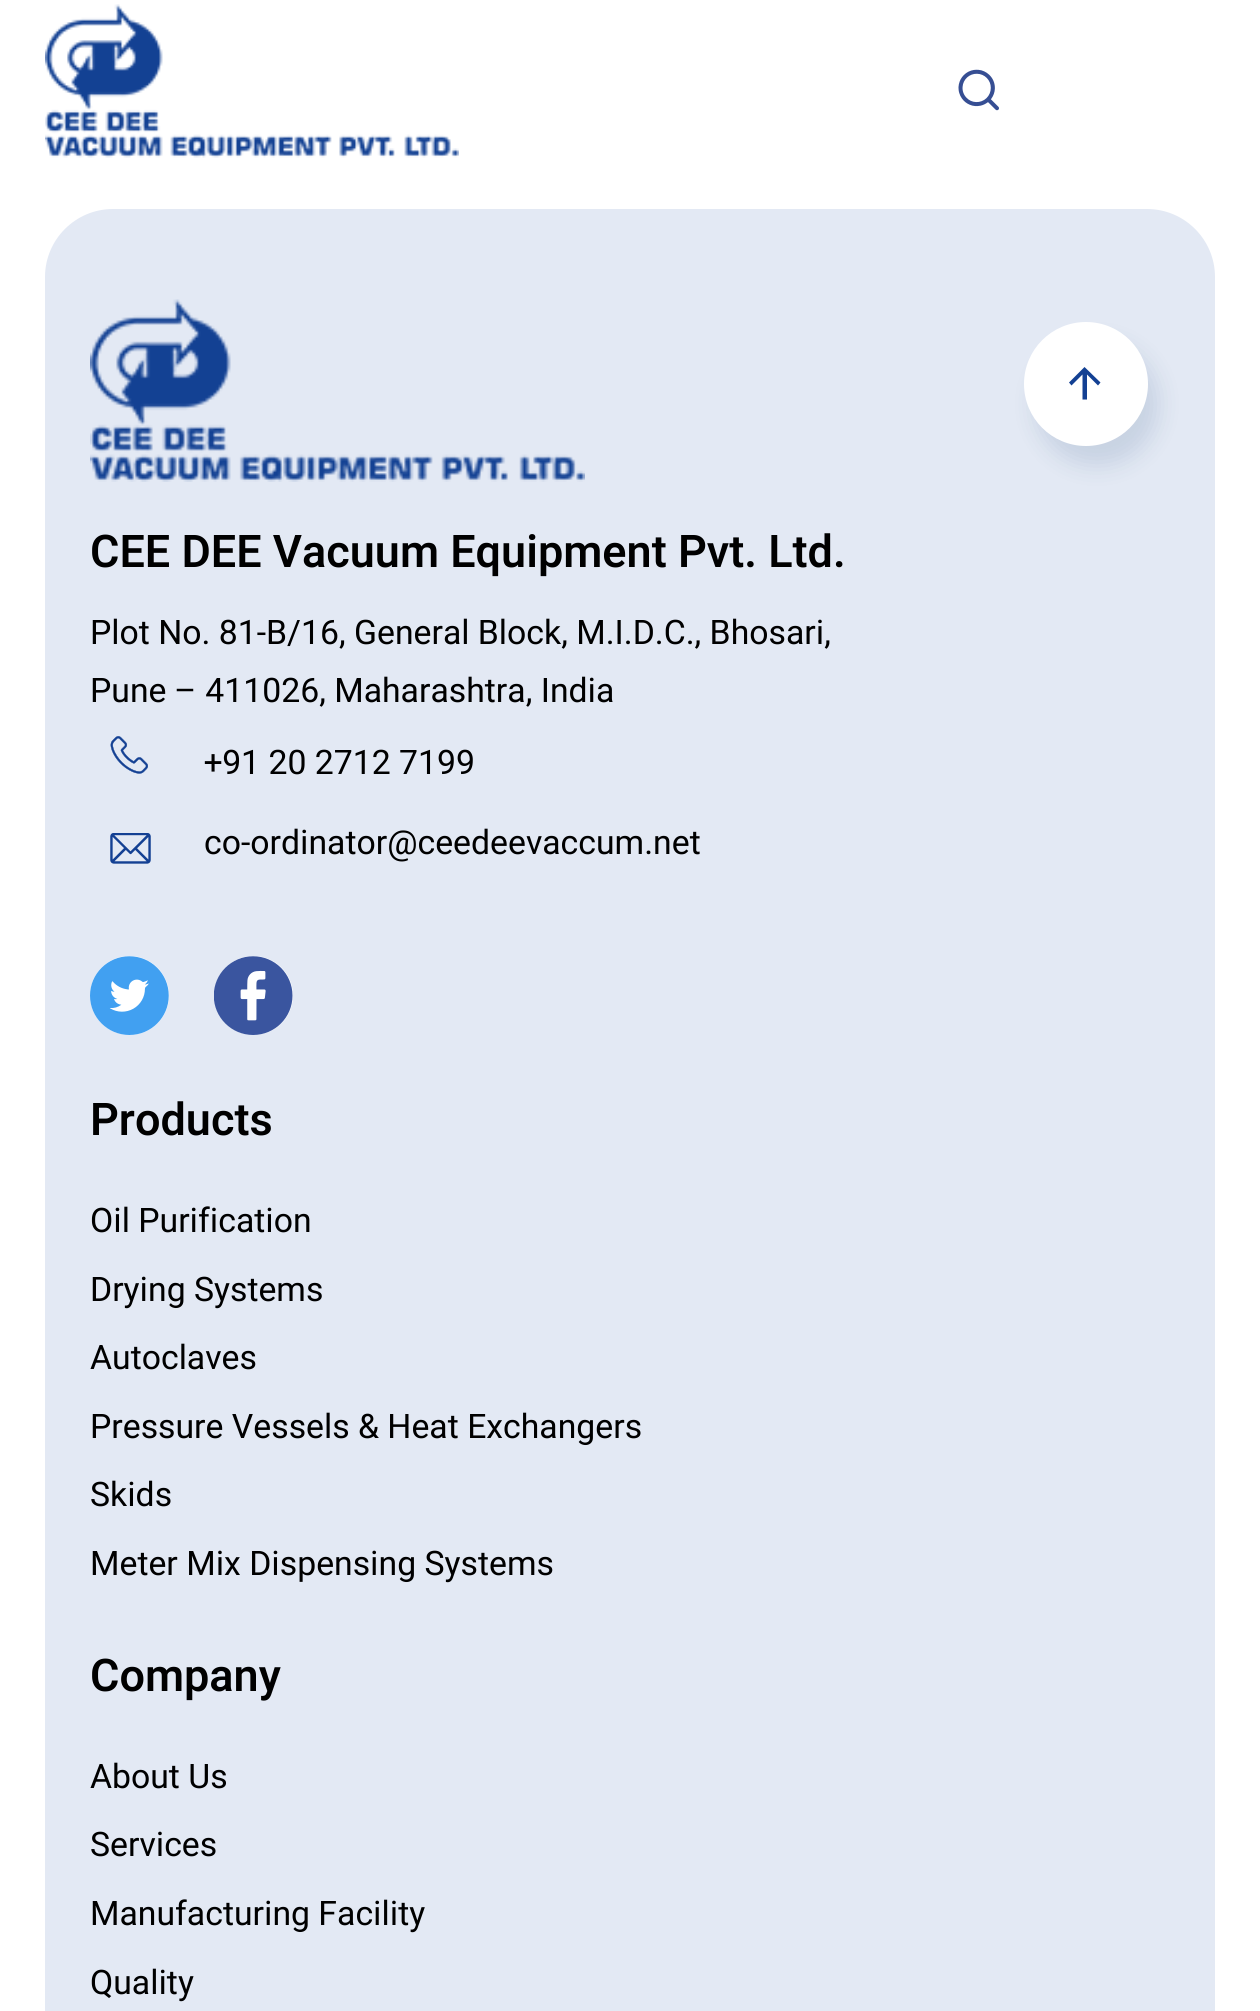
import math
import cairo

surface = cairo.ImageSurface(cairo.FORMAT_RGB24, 1260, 2011)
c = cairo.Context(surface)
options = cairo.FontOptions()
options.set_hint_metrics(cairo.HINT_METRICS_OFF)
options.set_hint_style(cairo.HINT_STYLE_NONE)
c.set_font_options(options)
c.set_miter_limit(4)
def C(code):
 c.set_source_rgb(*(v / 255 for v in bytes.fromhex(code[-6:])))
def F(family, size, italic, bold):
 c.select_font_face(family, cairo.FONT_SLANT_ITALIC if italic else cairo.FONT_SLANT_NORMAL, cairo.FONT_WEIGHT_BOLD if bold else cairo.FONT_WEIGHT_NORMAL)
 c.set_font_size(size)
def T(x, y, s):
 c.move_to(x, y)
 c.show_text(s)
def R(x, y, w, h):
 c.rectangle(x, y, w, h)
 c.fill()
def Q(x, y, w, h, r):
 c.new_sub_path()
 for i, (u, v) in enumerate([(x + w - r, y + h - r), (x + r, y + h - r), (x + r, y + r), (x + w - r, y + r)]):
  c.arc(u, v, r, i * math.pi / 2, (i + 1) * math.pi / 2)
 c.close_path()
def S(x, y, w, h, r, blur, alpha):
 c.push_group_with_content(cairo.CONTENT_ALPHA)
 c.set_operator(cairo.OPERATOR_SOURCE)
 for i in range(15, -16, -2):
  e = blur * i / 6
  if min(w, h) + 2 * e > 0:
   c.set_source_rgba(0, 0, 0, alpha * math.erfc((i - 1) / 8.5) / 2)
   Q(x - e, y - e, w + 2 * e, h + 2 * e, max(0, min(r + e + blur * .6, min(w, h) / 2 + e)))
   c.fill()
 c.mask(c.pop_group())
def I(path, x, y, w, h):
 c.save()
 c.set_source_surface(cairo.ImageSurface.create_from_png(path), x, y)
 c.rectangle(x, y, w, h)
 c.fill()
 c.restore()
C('ffffff')
c.paint()
I('1.png',45,4,414,154)
I('2.png',958,69,41,42)
C('e3e9f4')
c.new_path()
c.move_to(113,209)
c.line_to(1147,209)
c.curve_to(1184.5,209,1215,239.5,1215,277)
c.line_to(1215,504)
c.line_to(45,504)
c.line_to(45,277)
c.curve_to(45,239.5,75.5,209,113,209)
c.close_path()
c.fill()
I('3.png',90,299,495,183)
C('0e386e')
S(1035,342,124,124,62,11,.13)
C('ffffff')
c.arc(1086,384,62,0,2 * math.pi)
c.fill()
C('134093')
c.new_path()
c.move_to(1084.5,367)
c.line_to(1100.5,382.5)
c.line_to(1098,385.5)
c.line_to(1087,374.5)
c.line_to(1087,399.5)
c.line_to(1082.5,399.5)
c.line_to(1082.5,374.5)
c.line_to(1071.5,385.5)
c.line_to(1069,382.5)
c.line_to(1084.5,367)
c.fill()
C('e3e9f4')
R(45,504,1170,1507)
F('Heebo SemiBold',45,0,0)
C('000000')
T(90,567,'CEE DEE Vacuum Equipment Pvt. Ltd.')
F('Heebo',33.75,0,0)
T(90,644,'Plot No. 81-B/16, General Block, M.I.D.C., Bhosari,')
T(90,702,'Pune – 411026, Maharashtra, India')
I('4.png',110,736,38,38)
T(204,774,'+91 20 2712 7199')
I('5.png',110,833,41,31)
T(204,854,'co-ordinator@ceedeevaccum.net')
C('ffffff')
c.new_path()
c.arc(129.5,995.5,39.5,0,2 * math.pi)
c.fill()
I('6.png',90,956,79,79)
c.arc(253.5,995.5,39.5,0,2 * math.pi)
c.fill()
I('7.png',214,956,79,79)
F('Heebo SemiBold',45,0,0)
C('000000')
T(90,1135,'Products')
F('Heebo',33.75,0,0)
T(90,1232,'Oil Purification')
T(90,1301,'Drying Systems')
T(90,1369,'Autoclaves')
T(90,1438,'Pressure Vessels & Heat Exchangers')
T(90,1506,'Skids')
T(90,1575,'Meter Mix Dispensing Systems')
F('Heebo SemiBold',45,0,0)
T(90,1691,'Company')
F('Heebo',33.75,0,0)
T(90,1788,'About Us')
T(90,1856,'Services')
T(90,1925,'Manufacturing Facility')
T(90,1994,'Quality')
surface.write_to_png('o.png')
